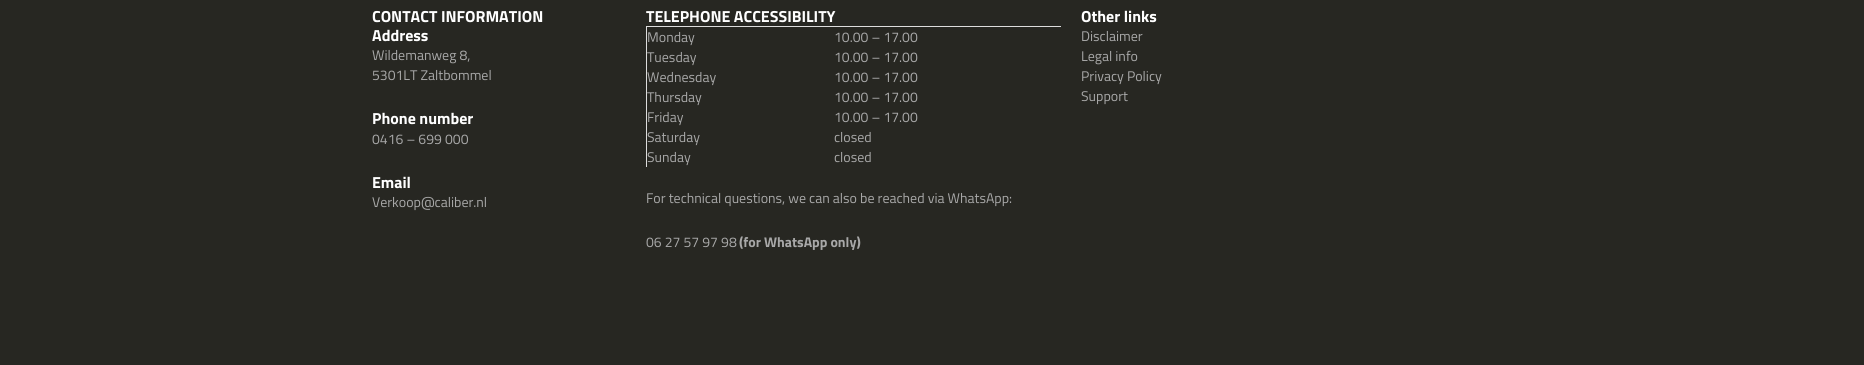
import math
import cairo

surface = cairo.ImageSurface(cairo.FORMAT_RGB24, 1864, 365)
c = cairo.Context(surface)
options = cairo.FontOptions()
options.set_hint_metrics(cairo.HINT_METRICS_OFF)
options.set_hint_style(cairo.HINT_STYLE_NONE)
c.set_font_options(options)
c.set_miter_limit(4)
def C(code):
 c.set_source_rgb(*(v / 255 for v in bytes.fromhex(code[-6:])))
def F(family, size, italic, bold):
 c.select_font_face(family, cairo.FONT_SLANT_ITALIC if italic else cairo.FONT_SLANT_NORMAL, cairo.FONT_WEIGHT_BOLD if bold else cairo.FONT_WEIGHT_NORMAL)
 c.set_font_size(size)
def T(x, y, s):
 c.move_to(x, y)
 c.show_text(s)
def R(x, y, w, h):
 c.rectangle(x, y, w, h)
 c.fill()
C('272722')
c.paint()
F('Titillium Web',16,0,1)
C('ffffff')
T(372,22,'CONTACT INFORMATION')
T(372,41,'Address')
F('Titillium Web',14,0,0)
C('a8a8a8')
T(372,60,'Wildemanweg 8,')
T(372,80,'5301LT Zaltbommel')
F('Titillium Web',16,0,1)
C('ffffff')
T(372,124,'Phone number')
F('Titillium Web',14,0,0)
C('a8a8a8')
T(372,144,'0416 – 699 000')
F('Titillium Web',16,0,1)
C('ffffff')
T(372,188,'Email')
F('Titillium Web',14,0,0)
C('a8a8a8')
T(372,207,'Verkoop@caliber.nl')
F('Titillium Web',16,0,1)
C('ffffff')
T(646,22,'TELEPHONE ACCESSIBILITY')
C('dddddd')
R(646,26,415,1)
R(646,26,1,141)
F('Titillium Web',14,0,0)
C('a8a8a8')
T(647,42,'Monday')
T(834,42,'10.00 – 17.00')
T(647,62,'Tuesday')
T(834,62,'10.00 – 17.00')
T(647,82,'Wednesday')
T(834,82,'10.00 – 17.00')
T(647,102,'Thursday')
T(834,102,'10.00 – 17.00')
T(647,122,'Friday')
T(834,122,'10.00 – 17.00')
T(647,142,'Saturday')
T(834,142,'closed')
T(647,162,'Sunday')
T(834,162,'closed')
T(646,203,'For technical questions, we can also be reached via WhatsApp:')
T(646,247,'06 27 57 97 98')
F('Titillium Web',14,0,1)
T(739,247,'(for WhatsApp only)')
F('Titillium Web',16,0,1)
C('ffffff')
T(1081,22,'Other links')
F('Titillium Web',14,0,0)
C('a8a8a8')
T(1081,41,'Disclaimer')
T(1081,61,'Legal info')
T(1081,81,'Privacy Policy')
T(1081,101,'Support')
surface.write_to_png('o.png')
